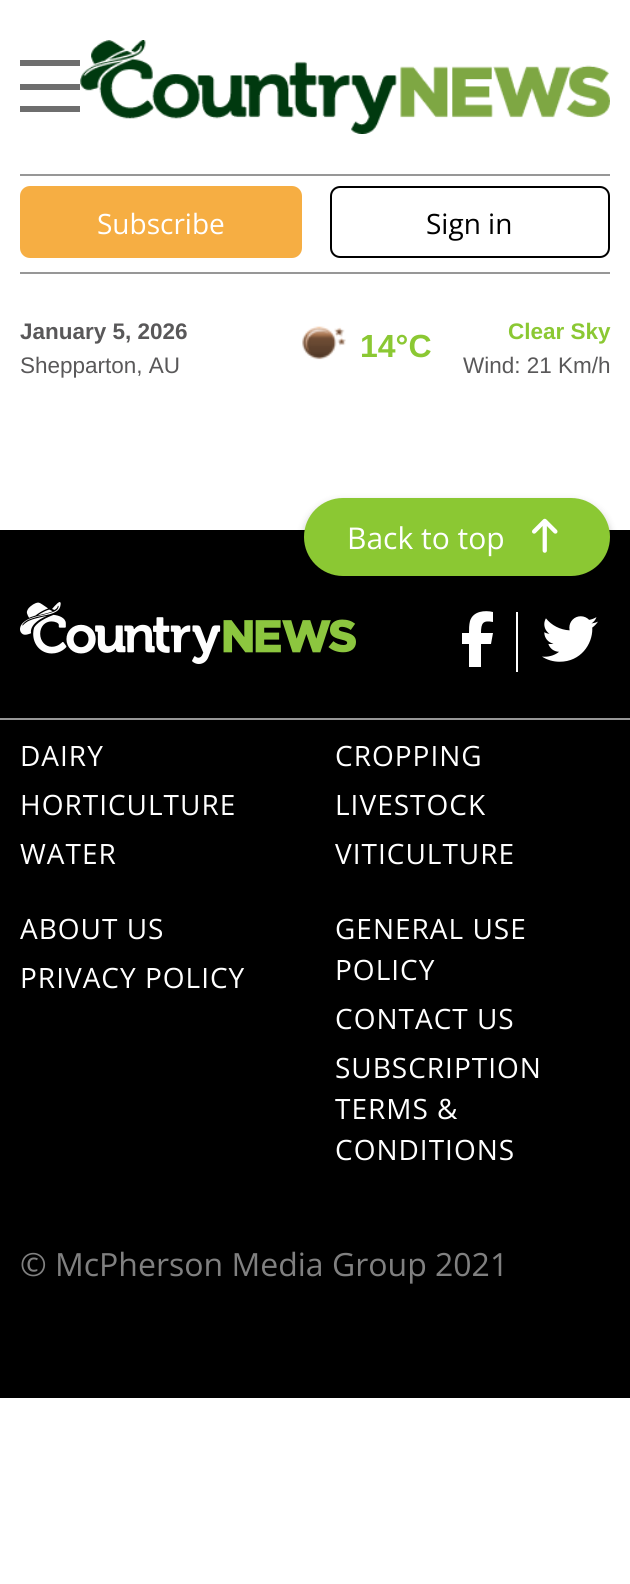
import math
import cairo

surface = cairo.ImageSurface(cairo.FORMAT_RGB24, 630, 1584)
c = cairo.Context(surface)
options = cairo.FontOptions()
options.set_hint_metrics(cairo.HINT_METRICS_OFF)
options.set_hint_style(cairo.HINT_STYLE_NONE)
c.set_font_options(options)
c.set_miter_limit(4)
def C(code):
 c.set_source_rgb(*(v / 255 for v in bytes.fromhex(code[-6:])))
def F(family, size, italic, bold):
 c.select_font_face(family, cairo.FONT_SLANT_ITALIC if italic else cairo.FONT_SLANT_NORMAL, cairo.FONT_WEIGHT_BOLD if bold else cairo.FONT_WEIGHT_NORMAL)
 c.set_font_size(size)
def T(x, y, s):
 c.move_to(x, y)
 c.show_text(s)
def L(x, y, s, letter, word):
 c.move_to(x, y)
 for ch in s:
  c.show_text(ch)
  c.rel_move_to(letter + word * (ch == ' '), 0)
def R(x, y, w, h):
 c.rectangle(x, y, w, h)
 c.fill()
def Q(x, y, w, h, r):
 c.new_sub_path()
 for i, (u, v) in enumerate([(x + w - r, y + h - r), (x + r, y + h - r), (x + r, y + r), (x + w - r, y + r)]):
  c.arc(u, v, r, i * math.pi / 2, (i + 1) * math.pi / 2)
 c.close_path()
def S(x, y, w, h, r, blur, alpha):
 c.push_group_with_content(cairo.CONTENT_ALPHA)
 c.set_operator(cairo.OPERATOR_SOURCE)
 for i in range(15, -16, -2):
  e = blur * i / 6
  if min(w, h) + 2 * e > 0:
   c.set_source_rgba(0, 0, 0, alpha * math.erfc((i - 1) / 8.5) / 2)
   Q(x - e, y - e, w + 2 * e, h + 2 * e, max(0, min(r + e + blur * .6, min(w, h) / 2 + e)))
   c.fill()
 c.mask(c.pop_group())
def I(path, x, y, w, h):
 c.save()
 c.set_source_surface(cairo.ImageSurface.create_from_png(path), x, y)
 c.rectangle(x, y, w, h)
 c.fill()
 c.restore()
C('ffffff')
c.paint()
C('6e6e6e')
R(20,60,60,6)
R(20,106,60,6)
R(20,84,60,6)
I('1.png',80,40,530,94)
C('979797')
R(20,174,590,2)
R(20,272,590,2)
C('f6ae43')
Q(20,186,282,72,10)
c.fill()
F('Open Sans',28,0,0)
C('ffffff')
T(97,234,'Subscribe')
Q(331,187,278,70,9)
C('000000')
c.stroke()
T(426,234,'Sign in')
F('Liberation Sans',22.5,0,1)
C('595859')
T(20,339,'January 5, 2026')
F('Liberation Sans',22.5,0,0)
T(20,373,'Shepparton, AU')
I('2.png',302,326,44,34)
F('Liberation Sans',32,0,1)
C('8bc833')
T(360,357,'14°C')
F('Liberation Sans',22.5,0,1)
T(508,339,'Clear Sky')
F('Liberation Sans',22.5,0,0)
C('595859')
T(463,373,'Wind: 21 Km/h')
C('000000')
R(0,530,630,868)
C('000000')
S(304,502,306,78,39,4,.25)
C('8bc833')
Q(304,498,306,78,39)
c.fill()
F('Open Sans',30,0,0)
C('ffffff')
T(347,549,'Back to top')
I('3.png',532,518,26,35)
C('979797')
R(0,718,630,2)
I('4.png',20,602,336,62)
C('ffffff')
c.new_path()
c.move_to(469,644)
c.line_to(469,667)
c.line_to(481,667)
c.line_to(481,644)
c.line_to(491,644)
c.line_to(493,633)
c.line_to(481,633)
c.curve_to(481,623,483,620,493,622)
c.line_to(493,612)
c.curve_to(485,610,473,611,470,621)
c.curve_to(469,625,469,629,469,633)
c.line_to(462,633)
c.line_to(462,644)
c.close_path()
c.fill()
R(516,612,2,60)
I('5.png',542,616,56,46)
F('Open Sans',28,0,0)
L(20,766,'DAIRY',1,0)
L(20,815,'HORTICULTURE',1,0)
L(20,864,'WATER',1,0)
L(335,766,'CROPPING',1,0)
L(335,815,'LIVESTOCK',1,0)
L(335,864,'VITICULTURE',1,0)
L(20,939,'ABOUT US',1,0)
L(20,988,'PRIVACY POLICY',1,0)
L(335,939,'GENERAL USE',1,0)
L(335,980,'POLICY',1,0)
L(335,1029,'CONTACT US',1,0)
L(335,1078,'SUBSCRIPTION',1,0)
L(335,1119,'TERMS &',1,0)
L(335,1160,'CONDITIONS',1,0)
F('Open Sans',32,0,0)
C('808080')
T(20,1276,'© McPherson Media Group 2021')
surface.write_to_png('o.png')
